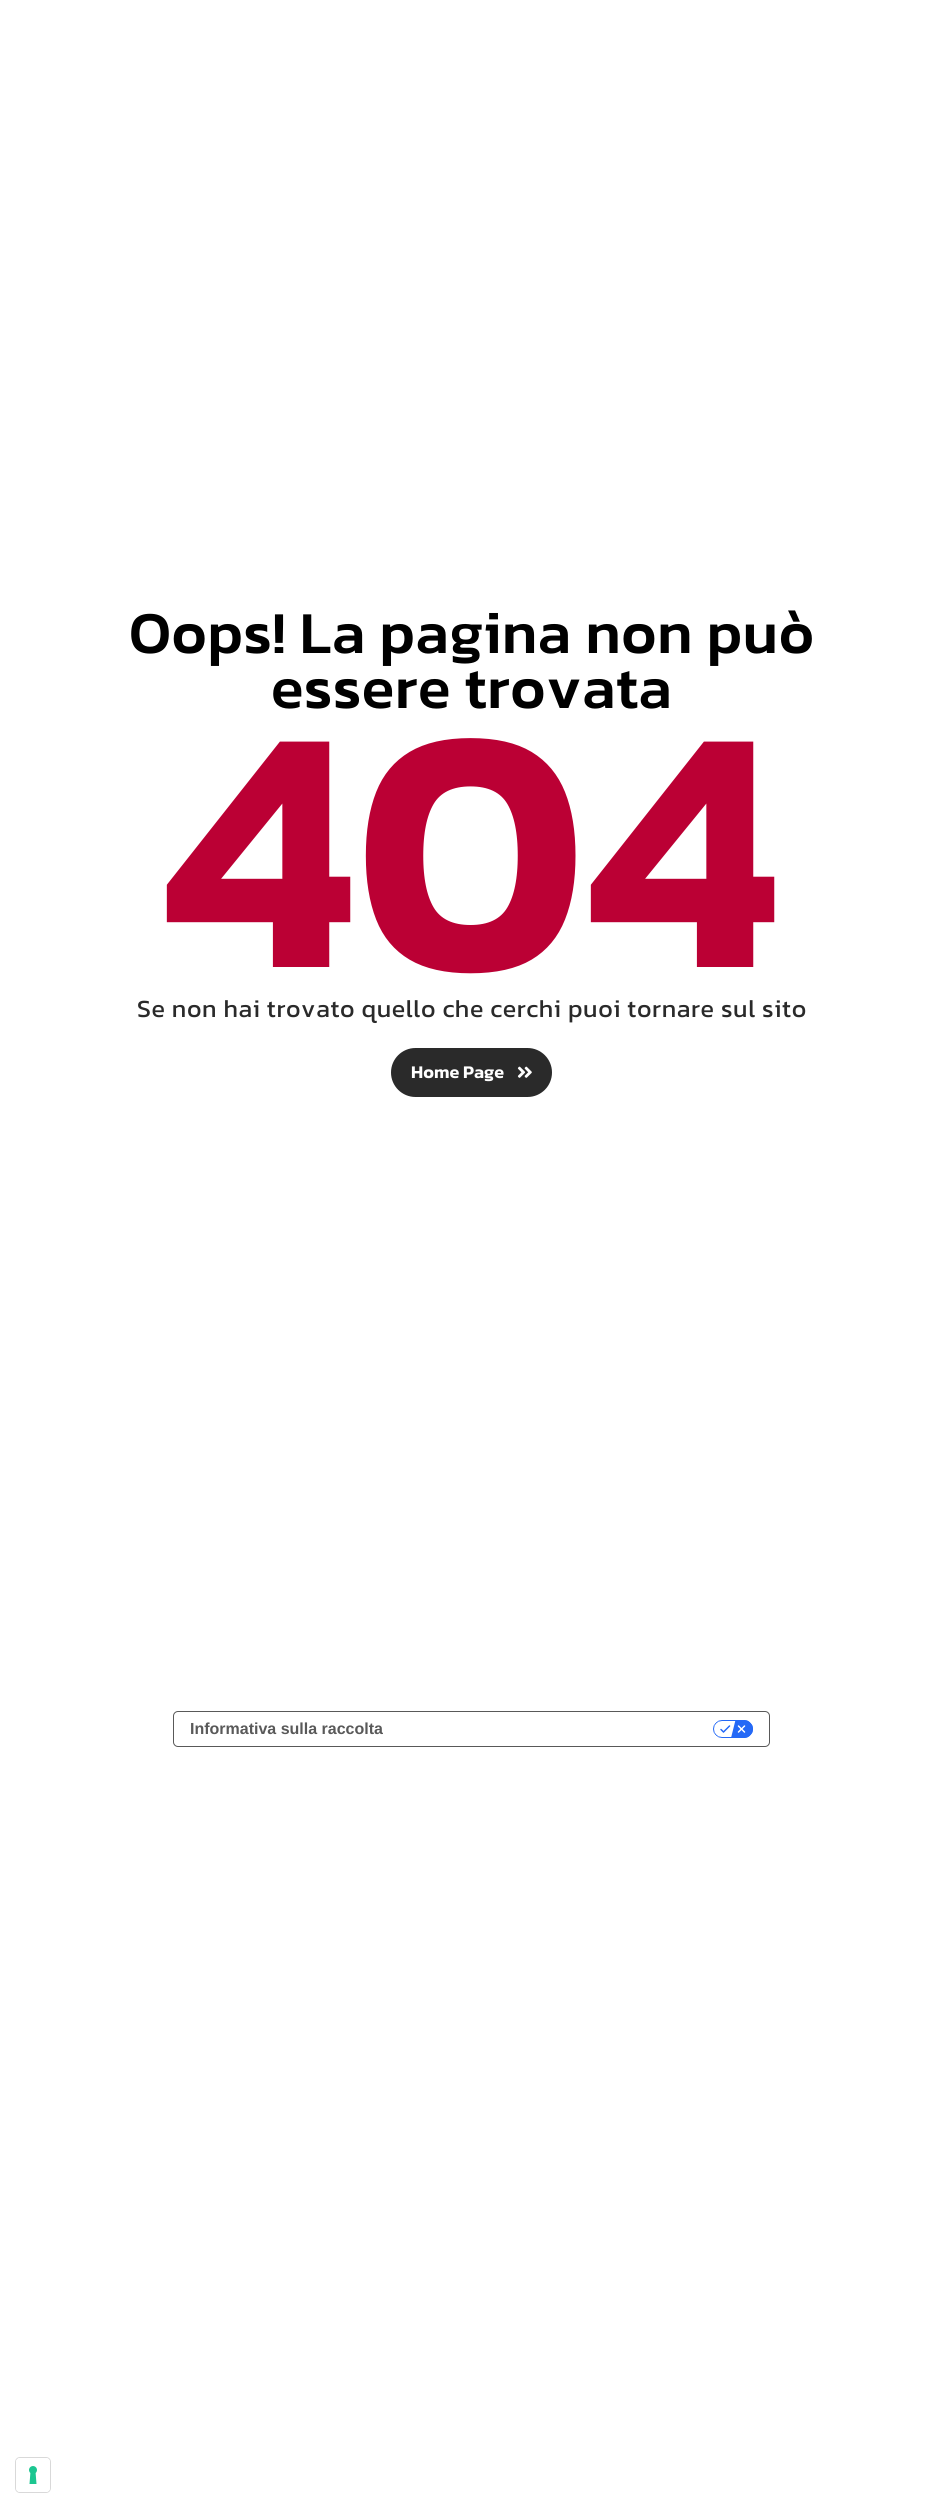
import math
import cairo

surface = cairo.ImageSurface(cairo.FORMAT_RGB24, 943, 2508)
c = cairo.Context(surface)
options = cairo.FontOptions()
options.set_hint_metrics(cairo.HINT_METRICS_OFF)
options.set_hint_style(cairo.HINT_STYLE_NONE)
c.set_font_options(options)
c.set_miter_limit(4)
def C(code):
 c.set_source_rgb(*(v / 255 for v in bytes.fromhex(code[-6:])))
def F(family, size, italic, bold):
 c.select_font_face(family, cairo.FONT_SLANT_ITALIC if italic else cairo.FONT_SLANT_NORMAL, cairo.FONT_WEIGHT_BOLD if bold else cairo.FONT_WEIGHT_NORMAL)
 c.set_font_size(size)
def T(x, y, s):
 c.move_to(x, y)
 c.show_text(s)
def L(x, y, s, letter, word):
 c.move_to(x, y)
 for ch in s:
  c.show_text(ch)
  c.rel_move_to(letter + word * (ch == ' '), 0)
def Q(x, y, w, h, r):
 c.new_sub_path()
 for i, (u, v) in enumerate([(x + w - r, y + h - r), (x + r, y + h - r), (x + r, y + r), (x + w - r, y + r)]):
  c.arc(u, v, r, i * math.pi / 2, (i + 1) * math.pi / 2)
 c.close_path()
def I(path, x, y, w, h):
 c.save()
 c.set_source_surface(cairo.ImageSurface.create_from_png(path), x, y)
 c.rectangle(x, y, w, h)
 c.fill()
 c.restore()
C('ffffff')
c.paint()
F('Kanit Medium',60,0,0)
C('000000')
L(129,653,'Oops! La pagina non può',.6,0)
L(271,708,'essere trovata',.6,0)
F('Kanit SemiBold',350,0,0)
C('bb0034')
L(163,967,'404',.6,0)
F('Kanit',25,0,0)
C('2a2a2a')
L(137,1017,'Se non hai trovato quello che cerchi puoi tornare sul sito',.6,0)
Q(391,1048,161,49,24.5)
c.fill()
F('Kanit SemiBold',18,0,0)
C('ffffff')
T(411,1078,'Home Page')
I('1.png',517,1066,15,12)
Q(173.5,1711.5,596,35,4.5)
C('595959')
c.set_line_width(1)
c.stroke()
F('Liberation Sans',16,0,1)
T(190,1734,'Informativa sulla raccolta')
I('2.png',713,1720,40,18)
Q(15.5,2457.5,35,35,4.5)
C('d9d9d9')
c.stroke()
C('ffffff')
Q(16,2458,34,34,4)
c.fill()
I('3.png',29,2466,8,18)
surface.write_to_png('o.png')
